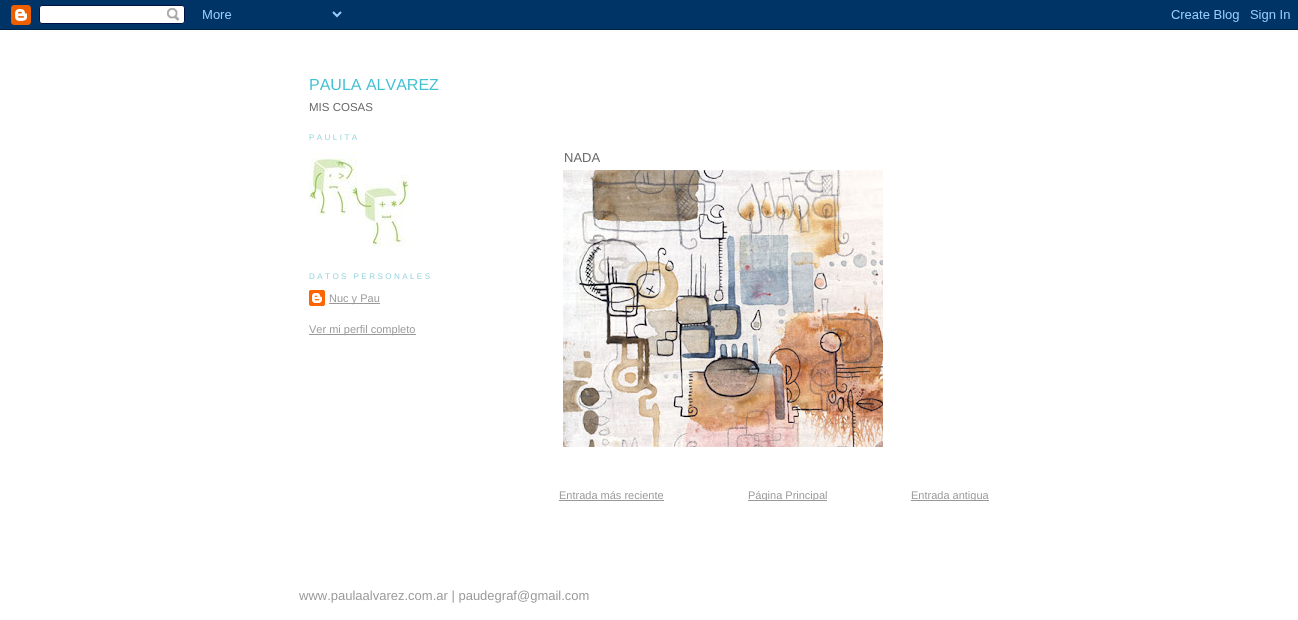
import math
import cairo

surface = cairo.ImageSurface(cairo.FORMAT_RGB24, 1298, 620)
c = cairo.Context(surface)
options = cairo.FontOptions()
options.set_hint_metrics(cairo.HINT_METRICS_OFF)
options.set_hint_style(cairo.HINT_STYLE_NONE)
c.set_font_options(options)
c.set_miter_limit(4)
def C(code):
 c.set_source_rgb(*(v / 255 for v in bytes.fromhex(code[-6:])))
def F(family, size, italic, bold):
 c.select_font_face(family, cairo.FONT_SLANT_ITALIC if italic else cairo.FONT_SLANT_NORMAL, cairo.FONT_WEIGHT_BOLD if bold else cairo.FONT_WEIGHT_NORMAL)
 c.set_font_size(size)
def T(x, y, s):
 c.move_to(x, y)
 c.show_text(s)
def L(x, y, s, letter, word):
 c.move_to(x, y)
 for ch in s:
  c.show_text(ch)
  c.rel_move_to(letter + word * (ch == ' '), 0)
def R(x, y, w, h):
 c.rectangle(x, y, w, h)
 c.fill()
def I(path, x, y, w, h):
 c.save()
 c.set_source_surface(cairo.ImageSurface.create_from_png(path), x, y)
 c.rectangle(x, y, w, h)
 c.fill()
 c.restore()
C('ffffff')
c.paint()
I('1.png',0,0,1298,30)
F('Liberation Sans',16,0,0)
C('43c0d3')
T(309,90,'PAULA ALVAREZ')
F('Liberation Sans',11.5,0,0)
C('666666')
T(309,111,'MIS COSAS')
F('Liberation Sans',8.1,0,0)
C('91d1db')
L(309,140,'PAULITA',2.4,0)
I('2.png',309,151,100,96)
L(309,279,'DATOS PERSONALES',2.4,0)
I('3.png',309,290,16,16)
C('999999')
R(329,303,51,1)
F('Liberation Sans',11,0,0)
T(329,302,'Nuc y Pau')
R(309,334,107,1)
T(309,333,'Ver mi perfil completo')
F('Liberation Sans',13,0,0)
C('666666')
T(564,162,'NADA')
I('4.png',563,170,320,277)
F('Liberation Sans',11,0,0)
C('999999')
T(559,499,'Entrada más reciente')
R(559,500,105,1)
R(748,500,79,1)
c.save()
c.rectangle(559,489,430,12)
c.clip()
T(748,499,'Página Principal')
c.restore()
R(911,500,78,1)
c.save()
c.rectangle(559,489,430,12)
c.clip()
T(911,499,'Entrada antigua')
c.restore()
F('Liberation Sans',13,0,0)
T(299,600,'www.paulaalvarez.com.ar | paudegraf@gmail.com')
surface.write_to_png('o.png')
